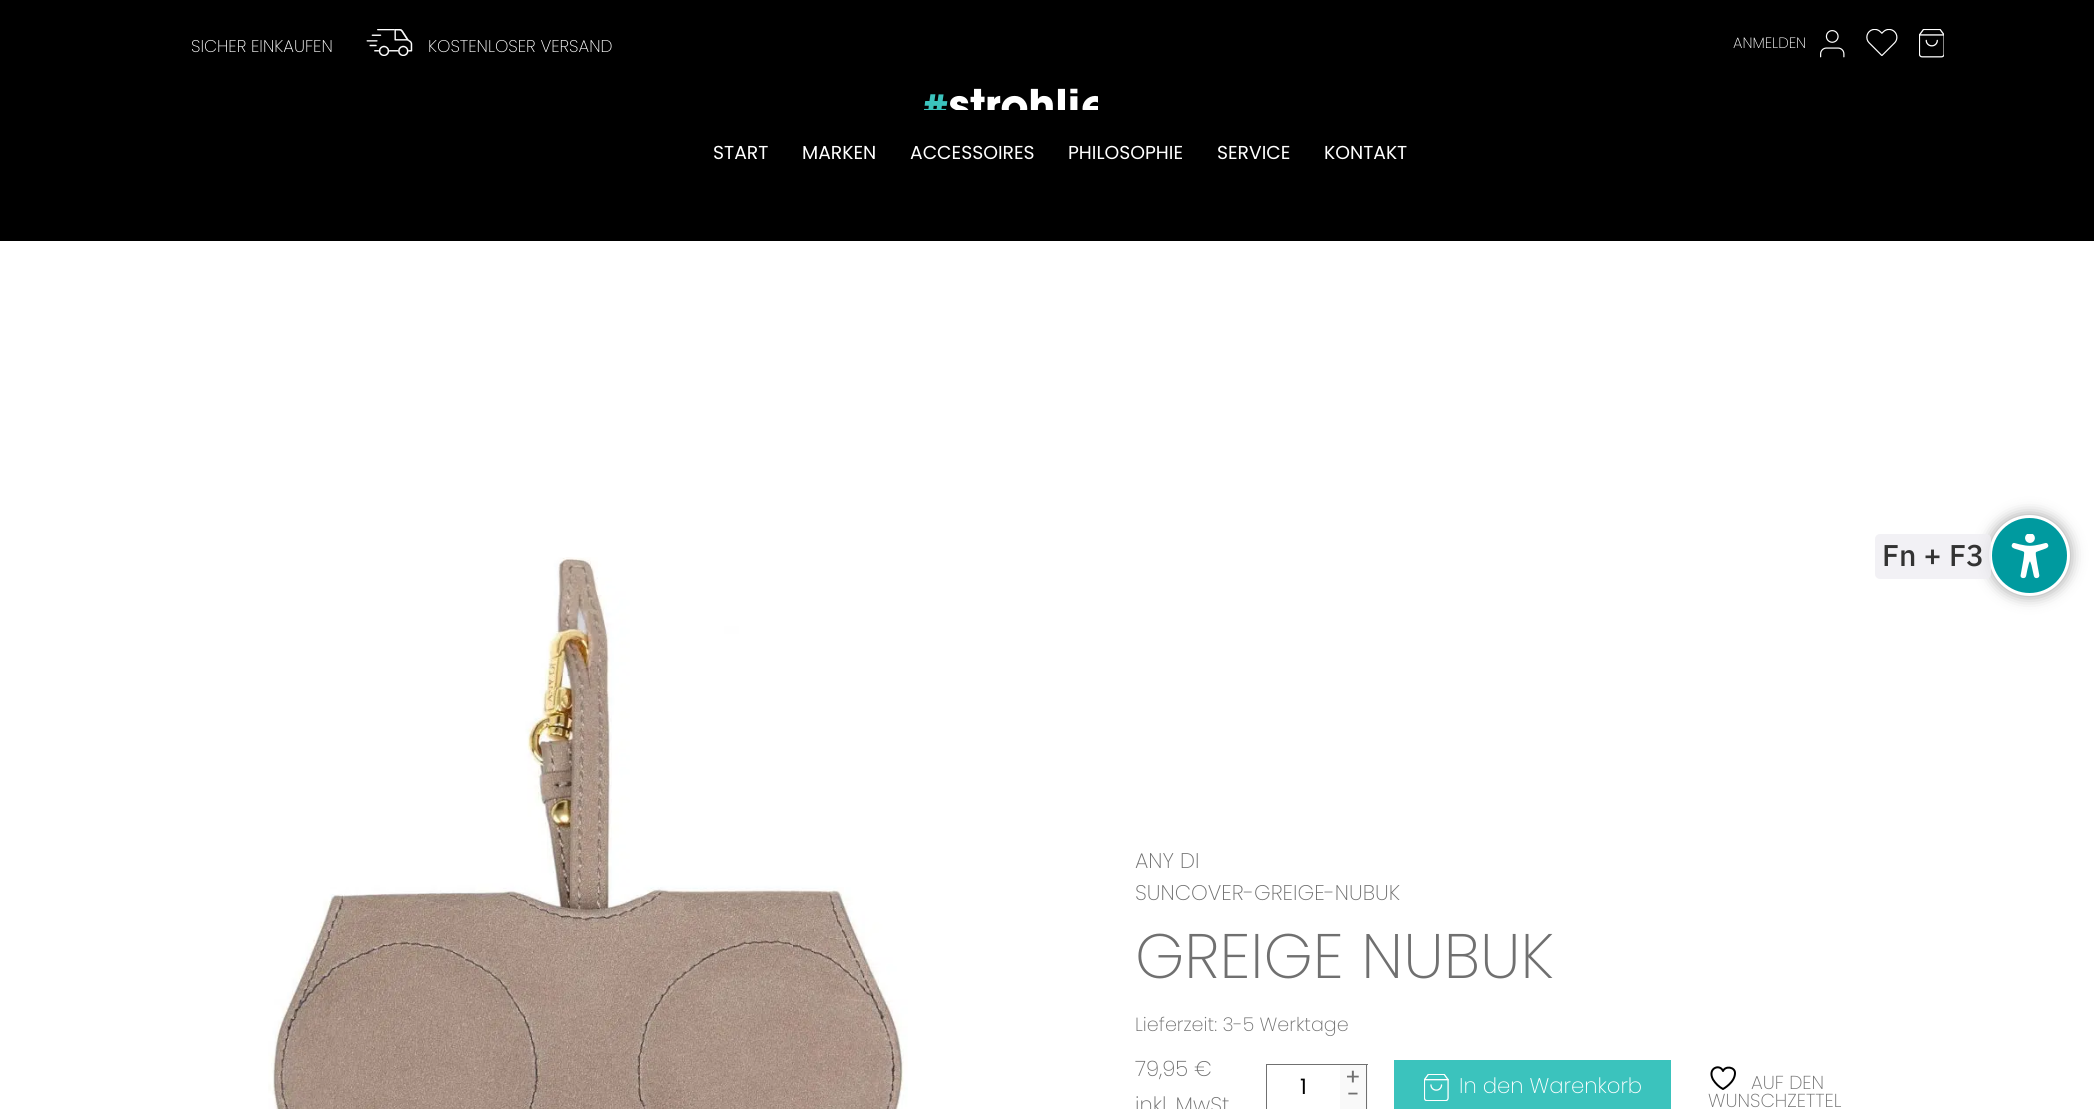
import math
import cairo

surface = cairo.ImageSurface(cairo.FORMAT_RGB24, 2094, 1109)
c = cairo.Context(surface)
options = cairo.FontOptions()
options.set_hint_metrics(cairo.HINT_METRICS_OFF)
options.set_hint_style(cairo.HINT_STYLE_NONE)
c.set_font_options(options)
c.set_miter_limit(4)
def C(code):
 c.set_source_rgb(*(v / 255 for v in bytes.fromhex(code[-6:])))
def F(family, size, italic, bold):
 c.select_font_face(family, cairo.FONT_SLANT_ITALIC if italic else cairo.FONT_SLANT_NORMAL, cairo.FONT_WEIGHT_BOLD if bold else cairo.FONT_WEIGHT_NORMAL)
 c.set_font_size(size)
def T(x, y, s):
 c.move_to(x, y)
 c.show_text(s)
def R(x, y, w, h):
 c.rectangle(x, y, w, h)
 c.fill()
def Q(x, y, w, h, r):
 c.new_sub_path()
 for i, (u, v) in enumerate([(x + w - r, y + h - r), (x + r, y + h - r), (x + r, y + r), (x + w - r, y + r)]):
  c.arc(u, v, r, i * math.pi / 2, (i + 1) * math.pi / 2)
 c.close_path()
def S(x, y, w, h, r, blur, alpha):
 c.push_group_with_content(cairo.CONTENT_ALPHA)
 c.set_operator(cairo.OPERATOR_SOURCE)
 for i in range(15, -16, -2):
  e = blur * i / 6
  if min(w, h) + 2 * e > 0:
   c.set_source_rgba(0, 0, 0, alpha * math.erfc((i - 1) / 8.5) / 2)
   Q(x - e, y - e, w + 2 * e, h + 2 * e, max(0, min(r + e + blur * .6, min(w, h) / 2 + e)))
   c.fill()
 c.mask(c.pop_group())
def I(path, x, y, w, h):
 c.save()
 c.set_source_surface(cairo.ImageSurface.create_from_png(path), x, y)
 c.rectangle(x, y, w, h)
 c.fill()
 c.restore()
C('ffffff')
c.paint()
C('000000')
R(0,0,2094,241)
F('Poppins ExtraLight',17,0,0)
C('ffffff')
T(191,52,'SICHER EINKAUFEN')
I('1.png',366,29,47,27)
T(428,52,'KOSTENLOSER VERSAND')
F('Poppins ExtraLight',15,0,0)
T(1733,48,'ANMELDEN')
I('2.png',1820,30,25,28)
I('3.png',1866,29,32,27)
I('4.png',1919,29,25,29)
I('5.png',924,88,174,22)
F('Poppins',18.75,0,0)
T(713,159,'START')
T(802,159,'MARKEN')
T(910,159,'ACCESSOIRES')
T(1068,159,'PHILOSOPHIE')
T(1217,159,'SERVICE')
T(1324,159,'KONTAKT')
I('6.png',268,557,640,552)
F('Poppins ExtraLight',21.25,0,0)
C('707070')
T(1135,868,'ANY DI')
T(1135,900,'SUNCOVER-GREIGE-NUBUK')
F('Poppins ExtraLight',62.75,0,0)
T(1135,978,'GREIGE NUBUK')
F('Poppins ExtraLight',19.1,0,0)
T(1135,1031,'Lieferzeit: 3-5 Werktage')
F('Poppins ExtraLight',21.25,0,0)
T(1135,1076,'79,95 €')
T(1135,1112,'inkl. MwSt')
c.rectangle(1266.5,1064.5,74,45)
c.set_line_width(1)
c.stroke()
C('f9f9f9')
R(1340,1091,28,18)
C('707070')
R(1366,1083,1,26)
C('f9f9f9')
R(1340,1065,28,26)
C('707070')
R(1340,1064,28,1)
R(1366,1064,1,27)
F('Poppins',23,0,0)
T(1345,1085,'+')
F('Poppins',21.25,0,0)
C('000000')
T(1300,1094,'1')
F('Poppins',23,0,0)
C('707070')
T(1347,1102,'-')
C('3bc3bd')
R(1394,1060,277,49)
I('7.png',1424,1074,25,27)
F('Poppins ExtraLight',21.25,0,0)
C('ffffff')
T(1459,1093,'In den Warenkorb')
c.new_path()
c.move_to(1735,1073)
c.curve_to(1735,1067,1725.5,1065.5,1723,1071)
c.curve_to(1720,1063.5,1707,1068,1713,1079.5)
c.curve_to(1715.5,1083.5,1719,1087,1723,1089)
c.curve_to(1723,1089,1735,1082.5,1735,1073)
c.close_path()
C('000000')
c.set_line_width(2)
c.set_line_cap(cairo.LINE_CAP_ROUND)
c.set_line_join(cairo.LINE_JOIN_ROUND)
c.stroke()
F('Poppins ExtraLight',18.75,0,0)
C('707070')
T(1751,1089,'AUF DEN')
T(1708,1107,'WUNSCHZETTEL')
C('000000')
S(1989,515,81,81,40.5,7.5,.4)
C('009a9f')
c.arc(2029.5,555.5,39,0,2 * math.pi)
c.fill_preserve()
C('ffffff')
c.set_line_width(3)
c.set_line_cap(cairo.LINE_CAP_BUTT)
c.set_line_join(cairo.LINE_JOIN_MITER)
c.stroke()
c.set_source_rgba(0.933,0.929,0.949,0.8)
Q(1875,534,116,45,5)
c.fill()
F('IBM Plex Sans Medium',30,0,0)
C('333333')
T(1882,566,'Fn +')
T(1949,566,'F3')
I('8.png',2011,534,38,45)
surface.write_to_png('o.png')
